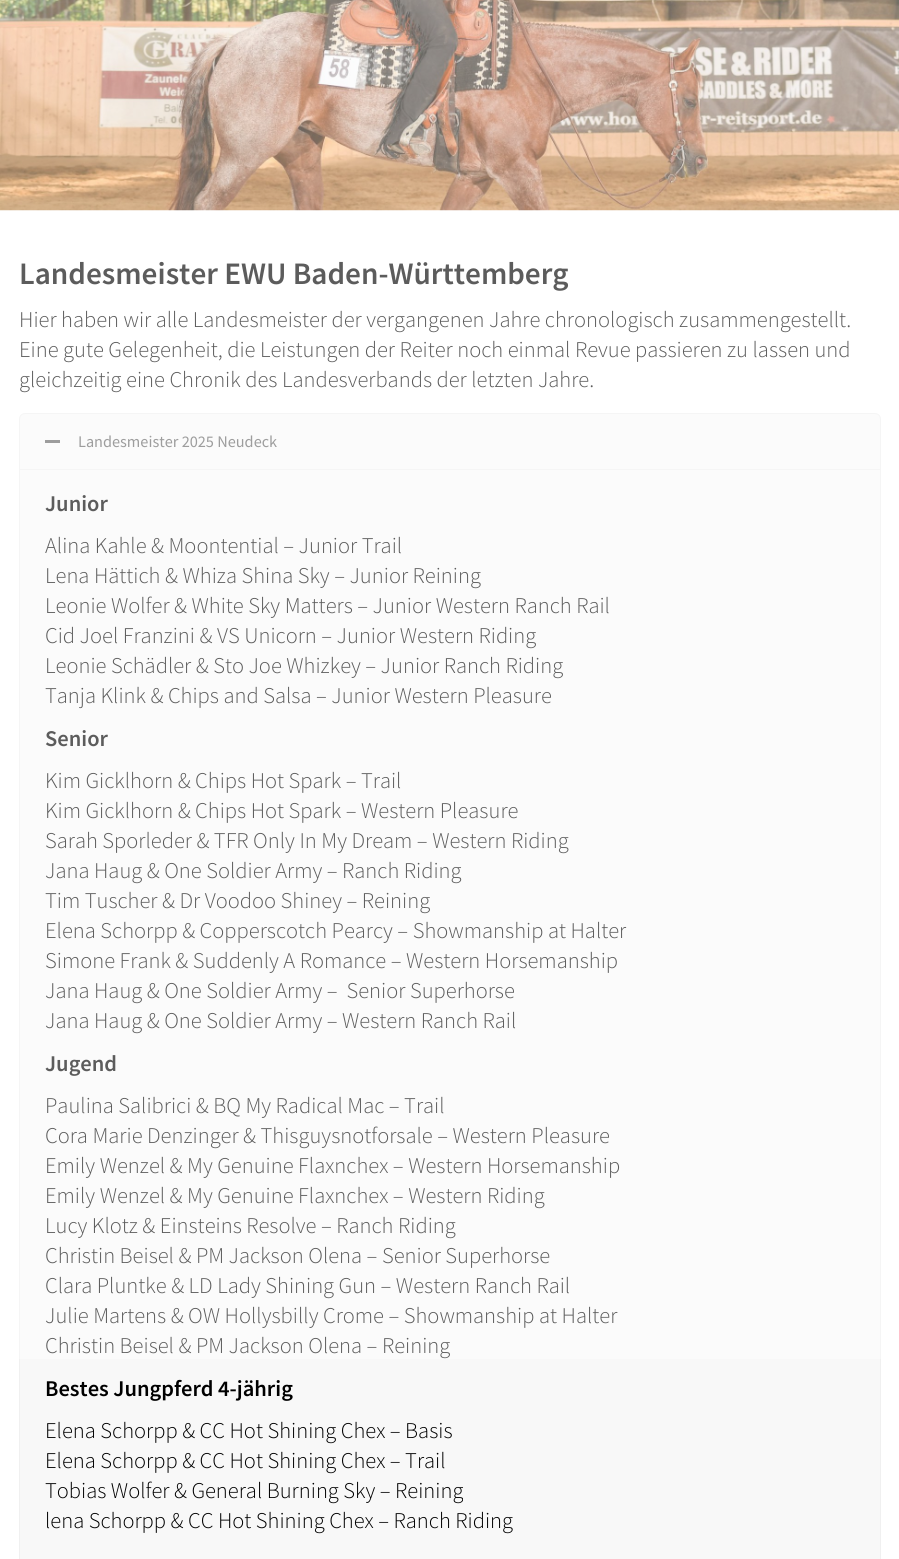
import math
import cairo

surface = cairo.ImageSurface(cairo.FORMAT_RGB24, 899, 1559)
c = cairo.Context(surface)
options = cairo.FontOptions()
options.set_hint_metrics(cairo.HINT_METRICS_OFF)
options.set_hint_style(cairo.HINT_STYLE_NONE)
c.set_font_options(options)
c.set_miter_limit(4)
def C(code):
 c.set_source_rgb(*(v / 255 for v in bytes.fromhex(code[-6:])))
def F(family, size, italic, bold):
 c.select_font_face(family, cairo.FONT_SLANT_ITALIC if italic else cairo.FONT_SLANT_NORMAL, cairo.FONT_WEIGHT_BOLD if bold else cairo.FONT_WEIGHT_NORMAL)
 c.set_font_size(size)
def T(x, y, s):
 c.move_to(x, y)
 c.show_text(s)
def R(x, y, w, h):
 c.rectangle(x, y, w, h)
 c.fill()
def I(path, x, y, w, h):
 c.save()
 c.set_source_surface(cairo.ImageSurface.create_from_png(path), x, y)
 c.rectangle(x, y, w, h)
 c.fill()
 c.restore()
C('ffffff')
c.paint()
I('1.png',0,0,899,211)
F('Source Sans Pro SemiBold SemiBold',31.25,0,0)
C('000000')
T(19,284,'Landesmeister EWU Baden-Württemberg')
F('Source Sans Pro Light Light',22.5,0,0)
T(19,327,'Hier haben wir alle Landesmeister der vergangenen Jahre chronologisch zusammengestellt.')
T(19,357,'Eine gute Gelegenheit, die Leistungen der Reiter noch einmal Revue passieren zu lassen und')
T(19,387,'gleichzeitig eine Chronik des Landesverbands der letzten Jahre.')
C('f8f8f8')
c.new_path()
c.move_to(25,413.5)
c.line_to(875,413.5)
c.curve_to(878,413.5,880.5,416,880.5,419)
c.line_to(880.5,469.5)
c.line_to(19.5,469.5)
c.line_to(19.5,419)
c.curve_to(19.5,416,22,413.5,25,413.5)
c.close_path()
c.fill_preserve()
C('f0f0f0')
c.set_line_width(1)
c.stroke()
C('666666')
R(45,440,15,3)
F('Source Sans Pro',16.25,0,0)
T(78,447,'Landesmeister 2025 Neudeck')
C('f8f8f8')
c.rectangle(19.5,469.5,861,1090)
c.fill_preserve()
C('f0f0f0')
c.stroke()
F('Source Sans Pro SemiBold SemiBold',22.5,0,0)
C('000000')
T(45,511,'Junior')
F('Source Sans Pro Light Light',22.5,0,0)
T(45,553,'Alina Kahle & Moontential – Junior Trail')
T(45,583,'Lena Hättich & Whiza Shina Sky – Junior Reining')
T(45,613,'Leonie Wolfer & White Sky Matters – Junior Western Ranch Rail')
T(45,643,'Cid Joel Franzini & VS Unicorn – Junior Western Riding')
T(45,673,'Leonie Schädler & Sto Joe Whizkey – Junior Ranch Riding')
T(45,703,'Tanja Klink & Chips and Salsa – Junior Western Pleasure')
F('Source Sans Pro SemiBold SemiBold',22.5,0,0)
T(45,746,'Senior')
F('Source Sans Pro Light Light',22.5,0,0)
T(45,788,'Kim Gicklhorn & Chips Hot Spark – Trail')
T(45,818,'Kim Gicklhorn & Chips Hot Spark – Western Pleasure')
T(45,848,'Sarah Sporleder & TFR Only In My Dream – Western Riding')
T(45,878,'Jana Haug & One Soldier Army – Ranch Riding')
T(45,908,'Tim Tuscher & Dr Voodoo Shiney – Reining')
T(45,938,'Elena Schorpp & Copperscotch Pearcy – Showmanship at Halter')
T(45,968,'Simone Frank & Suddenly A Romance – Western Horsemanship')
T(45,998,'Jana Haug & One Soldier Army –  Senior Superhorse')
T(45,1028,'Jana Haug & One Soldier Army – Western Ranch Rail')
F('Source Sans Pro SemiBold SemiBold',22.5,0,0)
T(45,1071,'Jugend')
F('Source Sans Pro Light Light',22.5,0,0)
T(45,1113,'Paulina Salibrici & BQ My Radical Mac – Trail')
T(45,1143,'Cora Marie Denzinger & Thisguysnotforsale – Western Pleasure')
T(45,1173,'Emily Wenzel & My Genuine Flaxnchex – Western Horsemanship')
T(45,1203,'Emily Wenzel & My Genuine Flaxnchex – Western Riding')
T(45,1233,'Lucy Klotz & Einsteins Resolve – Ranch Riding')
T(45,1263,'Christin Beisel & PM Jackson Olena – Senior Superhorse')
T(45,1293,'Clara Pluntke & LD Lady Shining Gun – Western Ranch Rail')
T(45,1323,'Julie Martens & OW Hollysbilly Crome – Showmanship at Halter')
T(45,1353,'Christin Beisel & PM Jackson Olena – Reining')
c.set_source_rgba(1,1,1,0.36)
R(0,0,899,1359)
F('Source Sans Pro SemiBold SemiBold',22.5,0,0)
C('000000')
T(45,1396,'Bestes Jungpferd 4-jährig')
F('Source Sans Pro Light Light',22.5,0,0)
T(45,1438,'Elena Schorpp & CC Hot Shining Chex – Basis')
T(45,1468,'Elena Schorpp & CC Hot Shining Chex – Trail')
T(45,1498,'Tobias Wolfer & General Burning Sky – Reining')
T(45,1528,'lena Schorpp & CC Hot Shining Chex – Ranch Riding')
surface.write_to_png('o.png')
